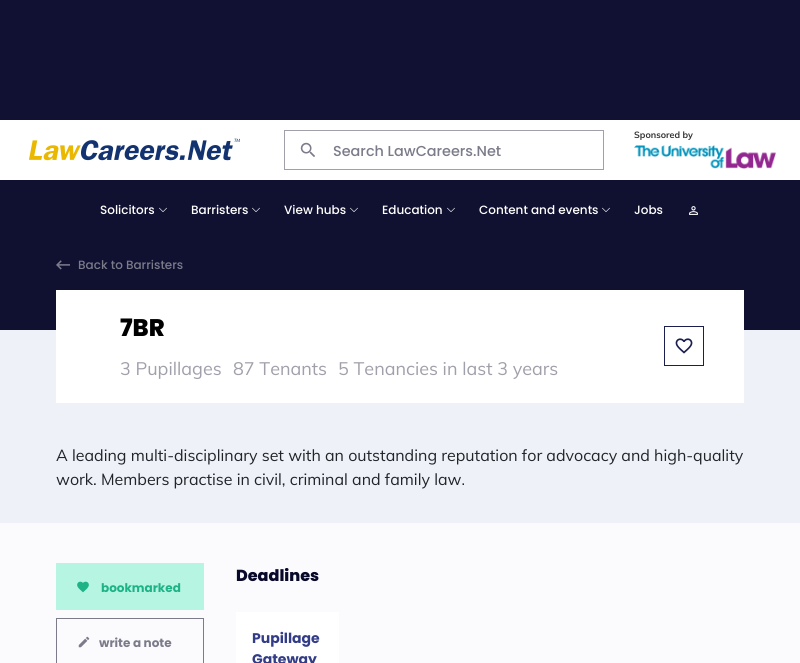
import math
import cairo

surface = cairo.ImageSurface(cairo.FORMAT_RGB24, 800, 663)
c = cairo.Context(surface)
options = cairo.FontOptions()
options.set_hint_metrics(cairo.HINT_METRICS_OFF)
options.set_hint_style(cairo.HINT_STYLE_NONE)
c.set_font_options(options)
c.set_miter_limit(4)
def C(code):
 c.set_source_rgb(*(v / 255 for v in bytes.fromhex(code[-6:])))
def F(family, size, italic, bold):
 c.select_font_face(family, cairo.FONT_SLANT_ITALIC if italic else cairo.FONT_SLANT_NORMAL, cairo.FONT_WEIGHT_BOLD if bold else cairo.FONT_WEIGHT_NORMAL)
 c.set_font_size(size)
def T(x, y, s):
 c.move_to(x, y)
 c.show_text(s)
def R(x, y, w, h):
 c.rectangle(x, y, w, h)
 c.fill()
def I(path, x, y, w, h):
 c.save()
 c.set_source_surface(cairo.ImageSurface.create_from_png(path), x, y)
 c.rectangle(x, y, w, h)
 c.fill()
 c.restore()
C('eef1f7')
c.paint()
C('111133')
R(0,0,800,120)
C('ffffff')
R(0,120,800,60)
F('Muli',9,0,1)
C('333333')
T(634,138,'Sponsored by')
I('1.png',634,145,142,24)
I('2.png',29,138,211,23)
c.rectangle(284.5,130.5,319,39)
C('a0a0ab')
c.set_line_width(1)
c.stroke()
I('3.png',300,142,15,15)
F('Poppins Medium',14.4,0,0)
C('7b7b8a')
T(333,156,'Search LawCareers.Net')
C('101031')
R(0,180,800,150)
F('Poppins Medium',12,0,0)
C('ffffff')
T(100,214,'Solicitors')
I('4.png',159,207,8,5)
T(191,214,'Barristers')
I('4.png',252,207,8,5)
T(284,214,'View hubs')
I('4.png',350,207,8,5)
T(382,214,'Education')
I('4.png',447,207,8,5)
T(479,214,'Content and events')
I('4.png',602,207,8,5)
T(634,214,'Jobs')
I('5.png',689,206,9,9)
I('6.png',56,260,14,10)
C('7b7b8a')
T(78,269,'Back to Barristers')
C('ffffff')
R(56,290,688,113)
F('Poppins ExtraBold',24,0,0)
C('000000')
T(120,336,'7BR')
F('Muli',18,0,0)
C('a0a0ab')
T(120,375,'3 Pupillages')
T(233,375,'87 Tenants')
T(338,375,'5 Tenancies in last 3 years')
c.rectangle(664.5,326.5,39,39)
C('1b1f50')
c.stroke()
F('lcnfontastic',20,0,0)
T(674,356,'1')
F('Muli',16,0,0)
C('212529')
T(56,461,'A leading multi-disciplinary set with an outstanding reputation for advocacy and high-quality')
T(56,485,'work. Members practise in civil, criminal and family law.')
C('fbfbfd')
R(0,523,800,140)
C('b6f5e2')
R(56,563,148,47)
I('7.png',77,581,12,12)
F('Poppins',12,0,1)
C('1db386')
T(101,592,'bookmarked')
c.rectangle(56.5,618.5,147,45)
C('7b7b8a')
c.stroke()
I('8.png',78,636,12,12)
T(99,647,'write a note')
F('Poppins ExtraBold',16,0,0)
C('09092c')
T(236,581,'Deadlines')
C('ffffff')
R(236,612,103,51)
F('Poppins',14,0,1)
C('333d87')
T(252,643,'Pupillage')
T(252,664,'Gateway')
surface.write_to_png('o.png')
